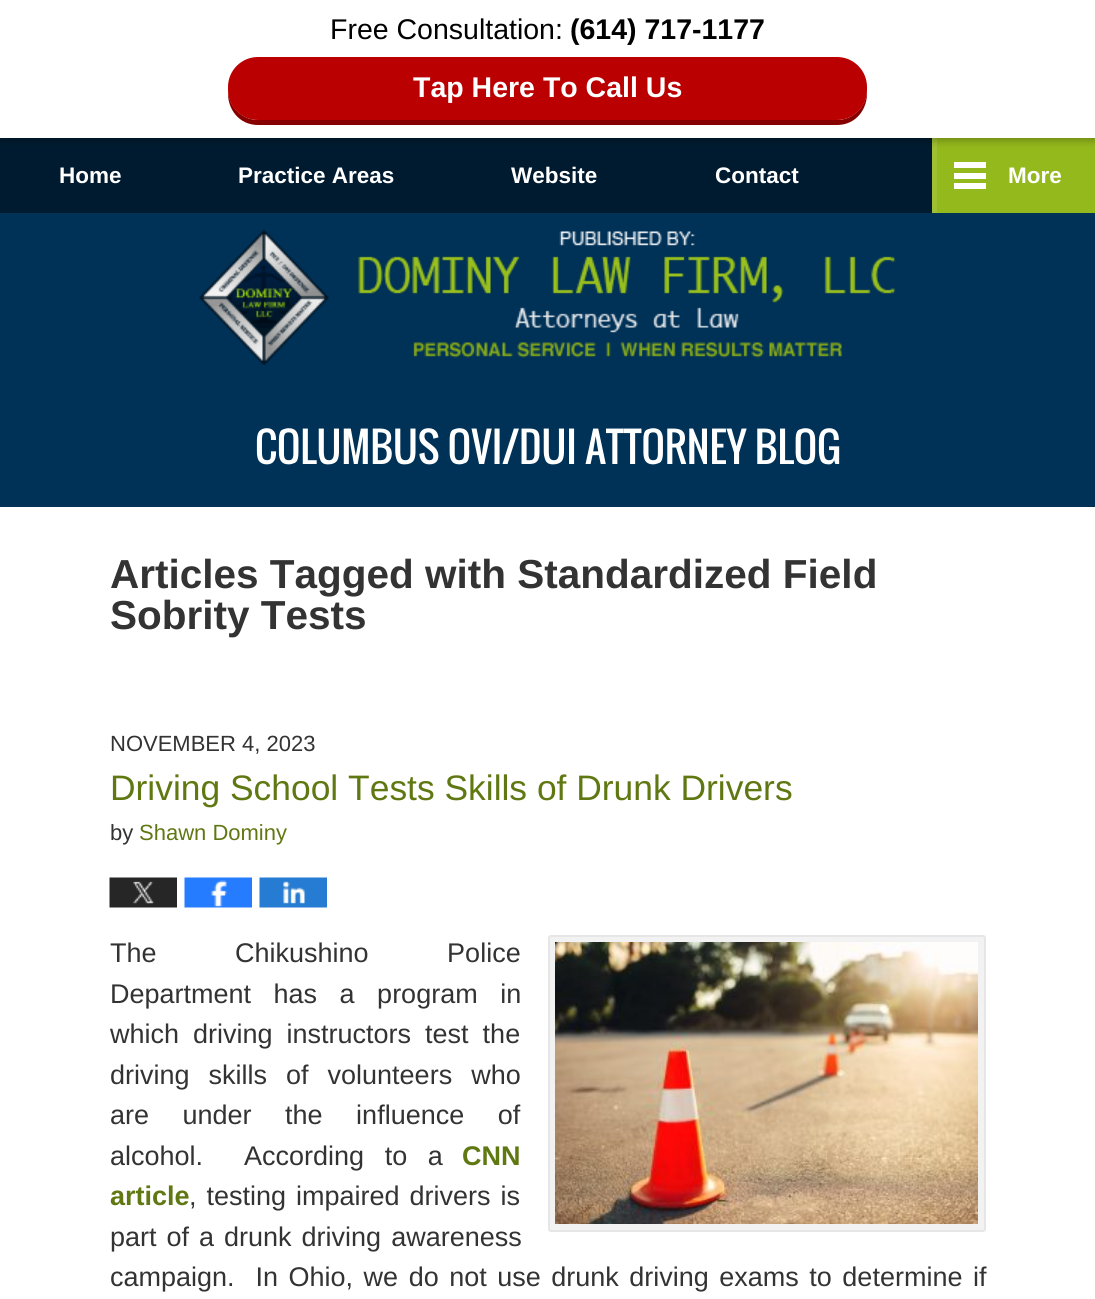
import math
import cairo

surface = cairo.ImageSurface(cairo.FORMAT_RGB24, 1095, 1299)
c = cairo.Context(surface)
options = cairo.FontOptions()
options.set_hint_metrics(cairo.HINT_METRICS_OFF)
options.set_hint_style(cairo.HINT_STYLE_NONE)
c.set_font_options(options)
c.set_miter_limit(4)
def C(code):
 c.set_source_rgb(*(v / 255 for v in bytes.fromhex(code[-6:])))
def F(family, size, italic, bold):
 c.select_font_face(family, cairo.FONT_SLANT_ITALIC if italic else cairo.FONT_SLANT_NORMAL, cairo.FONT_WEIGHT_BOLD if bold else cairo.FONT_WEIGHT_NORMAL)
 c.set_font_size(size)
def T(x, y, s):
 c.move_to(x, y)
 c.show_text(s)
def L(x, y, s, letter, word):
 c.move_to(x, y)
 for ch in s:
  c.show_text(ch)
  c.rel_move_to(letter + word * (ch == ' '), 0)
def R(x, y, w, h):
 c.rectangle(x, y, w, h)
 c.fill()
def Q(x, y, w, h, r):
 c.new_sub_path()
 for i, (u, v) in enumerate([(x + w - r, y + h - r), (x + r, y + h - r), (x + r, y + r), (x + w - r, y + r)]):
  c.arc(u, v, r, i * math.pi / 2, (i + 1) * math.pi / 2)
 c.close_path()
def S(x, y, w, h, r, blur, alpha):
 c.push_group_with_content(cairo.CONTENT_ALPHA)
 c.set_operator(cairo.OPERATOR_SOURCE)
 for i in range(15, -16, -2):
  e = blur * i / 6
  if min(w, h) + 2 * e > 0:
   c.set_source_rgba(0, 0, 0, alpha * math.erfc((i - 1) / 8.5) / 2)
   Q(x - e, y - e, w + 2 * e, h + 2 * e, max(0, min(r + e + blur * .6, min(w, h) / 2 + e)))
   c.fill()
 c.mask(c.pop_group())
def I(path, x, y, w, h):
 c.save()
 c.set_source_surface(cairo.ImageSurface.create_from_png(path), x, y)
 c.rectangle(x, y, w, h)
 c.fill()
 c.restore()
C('ffffff')
c.paint()
C('001b30')
R(0,138,932,75)
C('94b91c')
R(937,138,158,75)
C('9fc033')
R(932,138,5,75)
C('000000')
S(0,3,1095,138,0,4,.26)
C('ffffff')
R(0,0,1095,138)
F('Liberation Sans',28.5,0,0)
C('000000')
T(330,39,'Free Consultation:')
F('Liberation Sans',28.5,0,1)
T(570,39,'(614) 717-1177')
C('870000')
c.new_path()
c.move_to(228,91)
c.curve_to(227,109,239,125,258,125)
c.line_to(837,125)
c.curve_to(856,125,868,109,867,91)
c.curve_to(866,107,853,120,837,120)
c.line_to(258,120)
c.curve_to(242,120,229,107,228,91)
c.close_path()
c.fill()
C('ba0000')
Q(228,57,639,63,30)
c.fill()
C('ffffff')
T(413,97,'Tap Here To Call Us')
F('Liberation Sans',22.5,0,1)
T(59,183,'Home')
T(238,183,'Practice Areas')
T(511,183,'Website')
T(715,183,'Contact')
R(954,162,32,6)
R(954,173,32,6)
T(1008,183,'More')
R(954,183,32,6)
C('003156')
R(0,213,1095,294)
I('1.png',199,230,697,135)
F('Oswald',40.5,0,0)
C('ffffff')
T(255,464,'COLUMBUS OVI/DUI ATTORNEY BLOG')
F('Liberation Sans',40.5,0,1)
C('333333')
T(110,588,'Articles Tagged with Standardized Field')
T(110,629,'Sobrity Tests')
F('Liberation Sans',22,0,0)
T(110,751,'NOVEMBER 4, 2023')
F('Liberation Sans',35.4,0,0)
C('607812')
T(110,800,'Driving School Tests Skills of Drunk Drivers')
F('Liberation Sans',22,0,0)
C('333333')
T(110,840,'by')
C('607812')
T(139,840,'Shawn Dominy')
I('2.png',109,877,68,31)
I('3.png',184,877,68,31)
I('4.png',259,877,68,31)
F('Liberation Sans',27,0,0)
C('333333')
L(110,962,'The Chikushino Police',0,71)
C('f2f2f2')
Q(549,936,436,295,2)
c.fill_preserve()
C('e6e6e6')
c.stroke()
I('5.png',555,942,423,282)
C('333333')
L(110,1003,'Department has a program in',0,15)
L(110,1043,'which driving instructors test the',0,6.5)
L(110,1084,'driving skills of volunteers who',0,11.5)
L(110,1124,'are under the influence of',0,26)
L(110,1165,'alcohol.  According to a',0,13)
F('Liberation Sans',27,0,1)
C('607812')
T(462,1165,'CNN')
T(110,1205,'article')
F('Liberation Sans',27,0,0)
C('333333')
L(189,1205,', testing impaired drivers is',0,2.5)
L(110,1246,'part of a drunk driving awareness',0,2.5)
L(110,1286,'campaign.  In Ohio, we do not use drunk driving exams to determine if',0,3)
surface.write_to_png('o.png')
